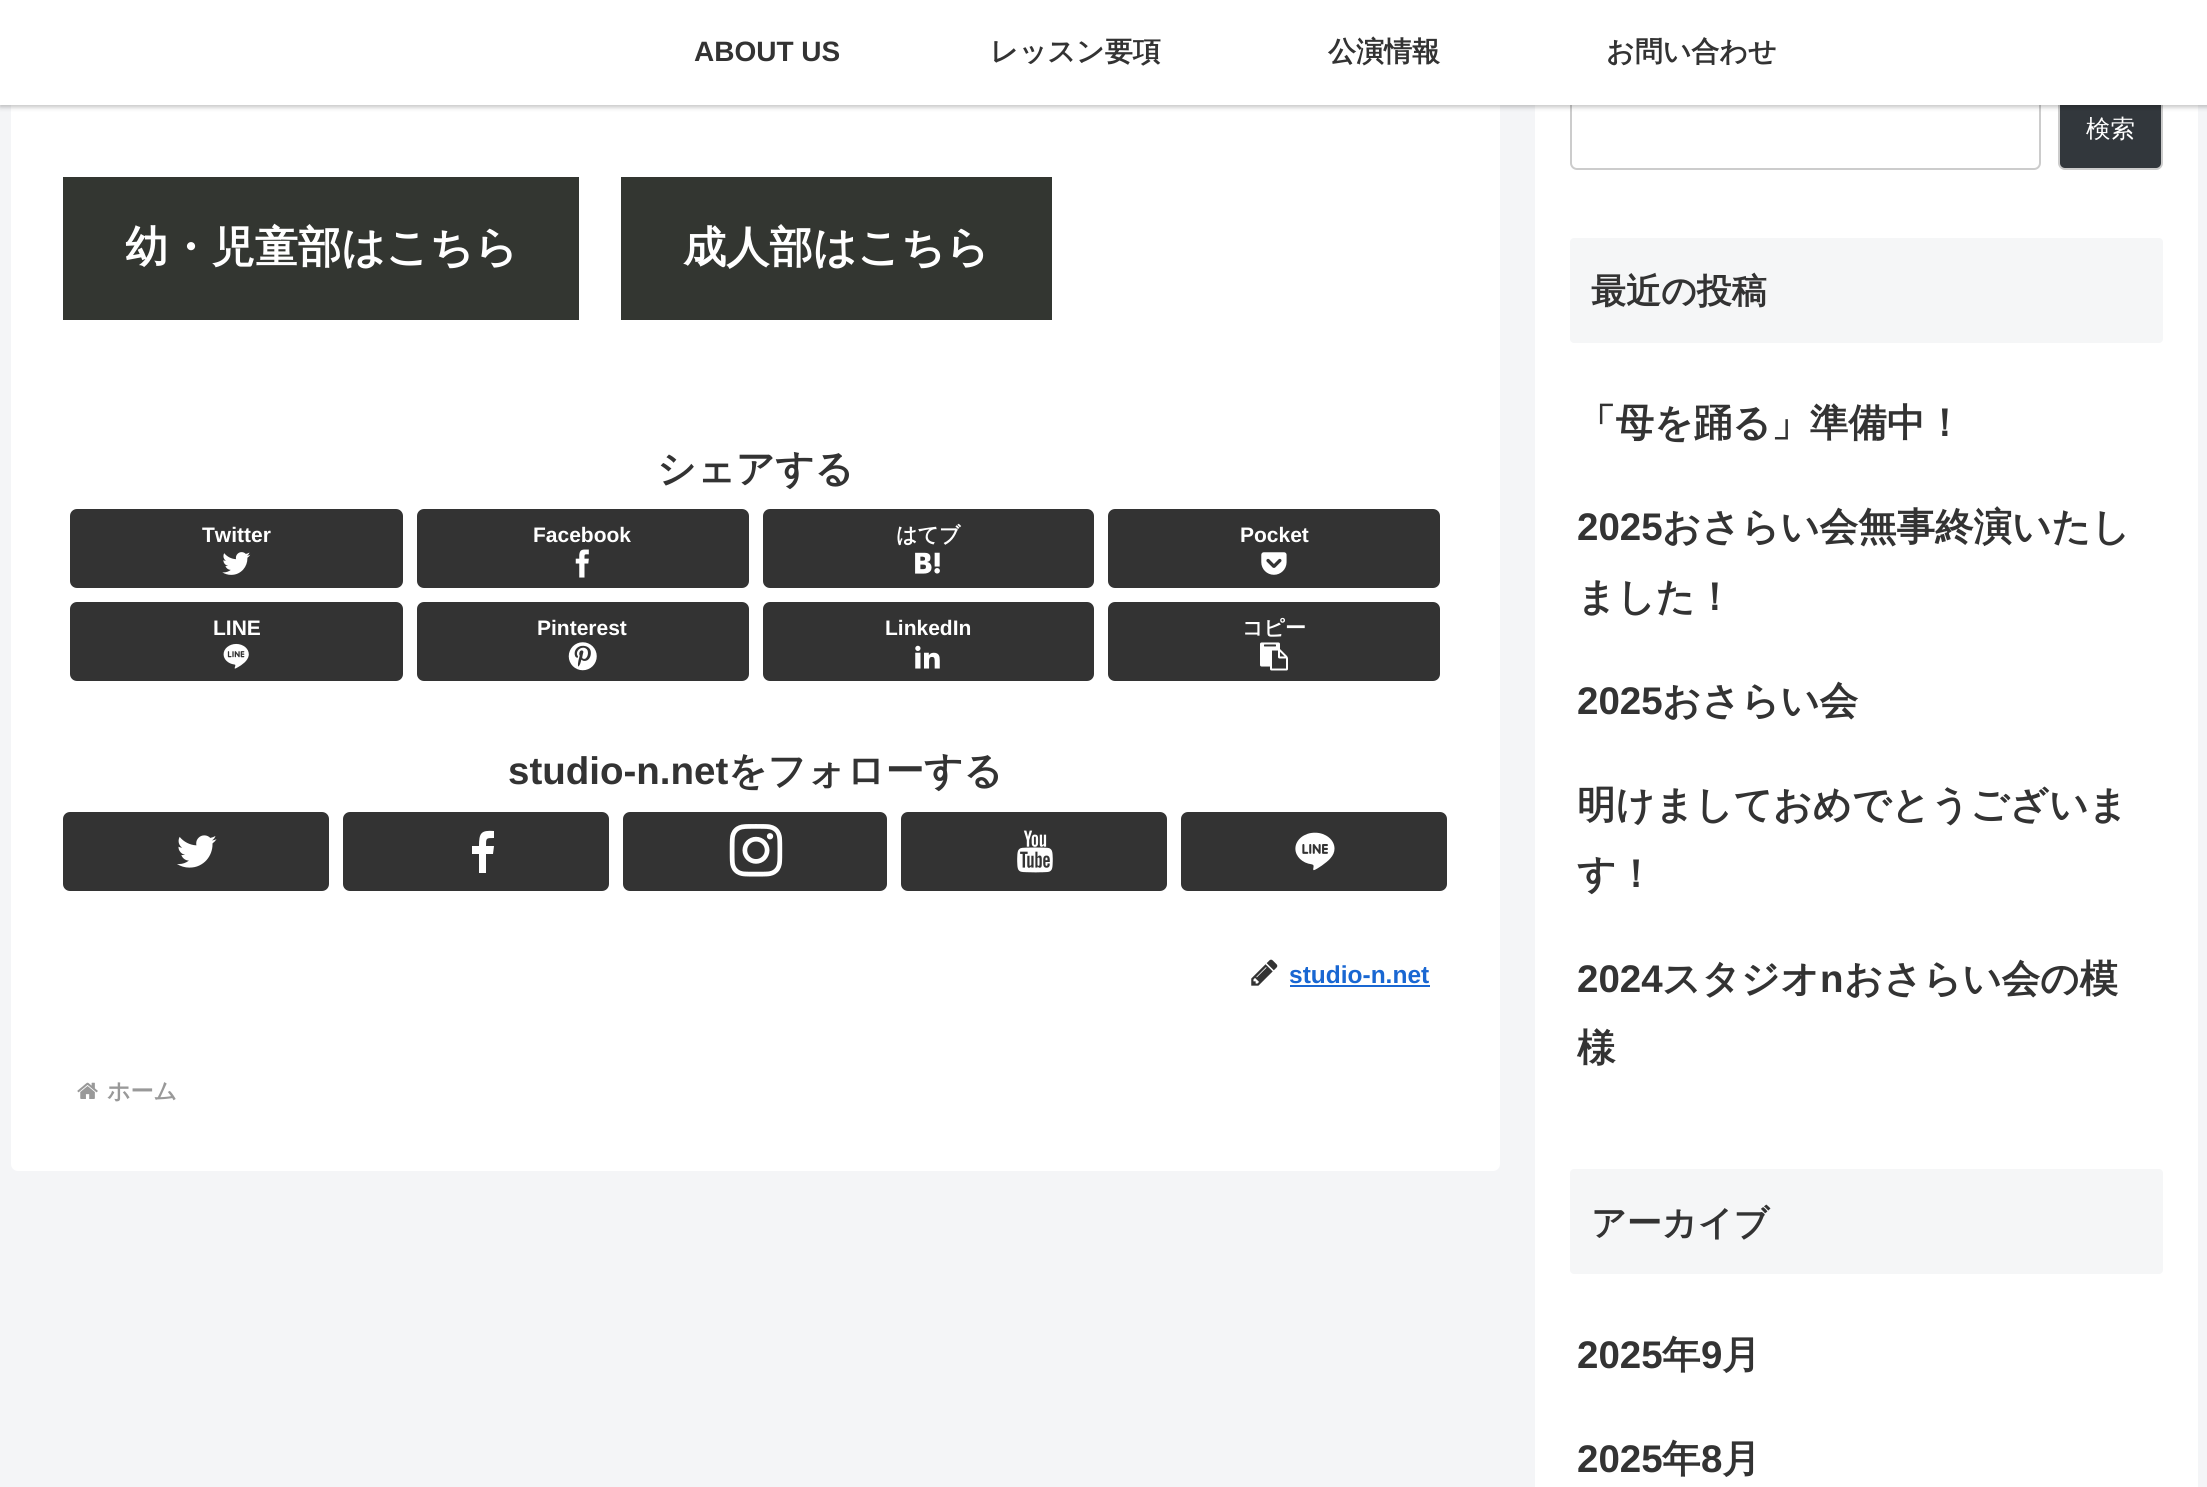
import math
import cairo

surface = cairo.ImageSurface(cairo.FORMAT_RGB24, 2207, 1487)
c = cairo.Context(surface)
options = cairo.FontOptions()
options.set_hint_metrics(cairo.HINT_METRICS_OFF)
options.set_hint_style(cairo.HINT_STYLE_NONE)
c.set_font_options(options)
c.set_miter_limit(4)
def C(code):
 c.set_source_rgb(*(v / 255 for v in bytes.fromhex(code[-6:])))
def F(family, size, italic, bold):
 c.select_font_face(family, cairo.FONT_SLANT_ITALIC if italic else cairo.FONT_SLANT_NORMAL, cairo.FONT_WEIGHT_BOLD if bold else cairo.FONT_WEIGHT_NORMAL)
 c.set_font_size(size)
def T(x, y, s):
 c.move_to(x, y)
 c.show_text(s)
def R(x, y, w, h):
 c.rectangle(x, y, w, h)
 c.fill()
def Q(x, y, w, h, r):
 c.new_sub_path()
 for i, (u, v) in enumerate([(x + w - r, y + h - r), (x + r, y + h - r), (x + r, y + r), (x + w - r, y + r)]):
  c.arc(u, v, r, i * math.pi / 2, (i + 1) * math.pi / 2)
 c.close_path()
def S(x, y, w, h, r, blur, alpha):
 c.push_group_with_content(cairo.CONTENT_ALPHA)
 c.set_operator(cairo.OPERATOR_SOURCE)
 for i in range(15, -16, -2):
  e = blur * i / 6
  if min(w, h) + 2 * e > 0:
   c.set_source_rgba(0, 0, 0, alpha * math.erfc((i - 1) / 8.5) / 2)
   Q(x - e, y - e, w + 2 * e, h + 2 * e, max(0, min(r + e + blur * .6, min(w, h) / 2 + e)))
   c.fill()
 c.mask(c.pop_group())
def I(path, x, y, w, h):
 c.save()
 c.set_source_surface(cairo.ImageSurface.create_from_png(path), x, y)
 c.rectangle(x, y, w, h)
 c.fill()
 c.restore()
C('f4f5f7')
c.paint()
C('ffffff')
Q(11,-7,1489,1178,7)
c.fill()
R(1535,105,663,1382)
Q(1571,92,469,77,6)
C('cccccc')
c.stroke()
C('32373c')
Q(2059,92,103,77,6)
c.fill_preserve()
C('cccccc')
c.stroke()
C('000000')
S(0,2,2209,105,0,2.5,.25)
C('ffffff')
R(0,0,2207,105)
F('Liberation Sans',28,0,1)
C('333333')
T(694,61,'ABOUT US')
F('WenQuanYi Zen Hei',28,0,1)
T(990,61,'レッスン要項')
T(1328,61,'公演情報')
T(1606,61,'お問い合わせ')
C('333631')
R(63,177,516,143)
F('WenQuanYi Zen Hei',43.25,0,1)
C('ffffff')
T(125,262,'幼・児童部はこちら')
C('333631')
R(621,177,431,143)
C('ffffff')
T(683,262,'成人部はこちら')
F('WenQuanYi Zen Hei',38.5,0,1)
C('333333')
T(657,482,'シェアする')
Q(70,509,333,79,7)
c.fill()
F('Liberation Sans',21,0,1)
C('ffffff')
T(202,542,'Twitter')
I('1.png',222,552,29,23)
C('333333')
Q(417,509,332,79,7)
c.fill()
C('ffffff')
T(533,542,'Facebook')
I('2.png',575,549,14,29)
C('333333')
Q(763,509,331,79,7)
c.fill()
F('WenQuanYi Zen Hei',21,0,1)
C('ffffff')
T(896,542,'はてブ')
I('3.png',915,552,25,22)
C('333333')
Q(1108,509,332,79,7)
c.fill()
F('Liberation Sans',21,0,1)
C('ffffff')
T(1240,542,'Pocket')
I('4.png',1261,552,26,23)
C('333333')
Q(70,602,333,79,7)
c.fill()
C('ffffff')
T(213,635,'LINE')
I('5.png',223,643,26,26)
C('333333')
Q(417,602,332,79,7)
c.fill()
C('ffffff')
T(537,635,'Pinterest')
I('6.png',568,642,29,29)
C('333333')
Q(763,602,331,79,7)
c.fill()
C('ffffff')
T(885,635,'LinkedIn')
I('7.png',915,645,25,24)
C('333333')
Q(1108,602,332,79,7)
c.fill()
F('WenQuanYi Zen Hei',21,0,1)
C('ffffff')
T(1242,635,'コピー')
I('8.png',1260,642,28,29)
F('Liberation Sans',38.5,0,1)
C('333333')
T(508,784,'studio-n.net')
F('WenQuanYi Zen Hei',38.5,0,1)
T(728,784,'をフォローする')
Q(63,812,266,79,7)
c.fill()
I('9.png',177,835,40,33)
Q(343,812,266,79,7)
c.fill()
C('ffffff')
c.new_path()
c.move_to(486,873)
c.line_to(486,854)
c.line_to(493,854)
c.line_to(494,846)
c.line_to(486,846)
c.curve_to(486,838,486,838,494,838)
c.line_to(494,831)
c.curve_to(481,830,479,833,479,846)
c.line_to(472,846)
c.line_to(472,854)
c.line_to(479,854)
c.line_to(479,873)
c.close_path()
c.fill()
C('333333')
Q(623,812,264,79,7)
c.fill()
I('10.png',729,824,54,53)
Q(901,812,266,79,7)
c.fill()
I('11.png',1017,830,36,43)
Q(1181,812,266,79,7)
c.fill()
I('12.png',1295,832,40,39)
I('13.png',1251,959,27,27)
F('Liberation Sans',24.5,0,1)
C('1967d2')
T(1289,983,'studio-n.net')
R(1290,985,140,2)
I('14.png',77,1082,21,17)
F('WenQuanYi Zen Hei',23,0,1)
C('999999')
T(107,1099,'ホーム')
F('WenQuanYi Zen Hei Medium',24.5,0,0)
C('ffffff')
T(2086,137,'検索')
C('f5f6f7')
Q(1570,238,593,105,4)
c.fill()
F('WenQuanYi Zen Hei',35,0,1)
C('333333')
T(1591,303,'最近の投稿')
F('WenQuanYi Zen Hei',38.5,0,1)
T(1577,436,'「母を踊る」準備中！')
F('Liberation Sans',38.5,0,1)
T(1577,540,'2025')
F('WenQuanYi Zen Hei',38.5,0,1)
T(1662,540,'おさらい会無事終演いたし')
T(1577,610,'ました！')
F('Liberation Sans',38.5,0,1)
T(1577,714,'2025')
F('WenQuanYi Zen Hei',38.5,0,1)
T(1662,714,'おさらい会')
T(1577,818,'明けましておめでとうございま')
T(1577,887,'す！')
F('Liberation Sans',38.5,0,1)
T(1577,992,'2024')
F('WenQuanYi Zen Hei',38.5,0,1)
T(1662,992,'スタジオ')
F('Liberation Sans',38.5,0,1)
T(1820,992,'n')
F('WenQuanYi Zen Hei',38.5,0,1)
T(1844,992,'おさらい会の模')
T(1577,1061,'様')
C('f5f6f7')
Q(1570,1169,593,105,4)
c.fill()
F('WenQuanYi Zen Hei',35,0,1)
C('333333')
T(1591,1235,'アーカイブ')
F('Liberation Sans',38.5,0,1)
T(1577,1368,'2025')
F('WenQuanYi Zen Hei',38.5,0,1)
T(1662,1368,'年')
F('Liberation Sans',38.5,0,1)
T(1701,1368,'9')
F('WenQuanYi Zen Hei',38.5,0,1)
T(1722,1368,'月')
F('Liberation Sans',38.5,0,1)
T(1577,1472,'2025')
F('WenQuanYi Zen Hei',38.5,0,1)
T(1662,1472,'年')
F('Liberation Sans',38.5,0,1)
T(1701,1472,'8')
F('WenQuanYi Zen Hei',38.5,0,1)
T(1722,1472,'月')
surface.write_to_png('o.png')
